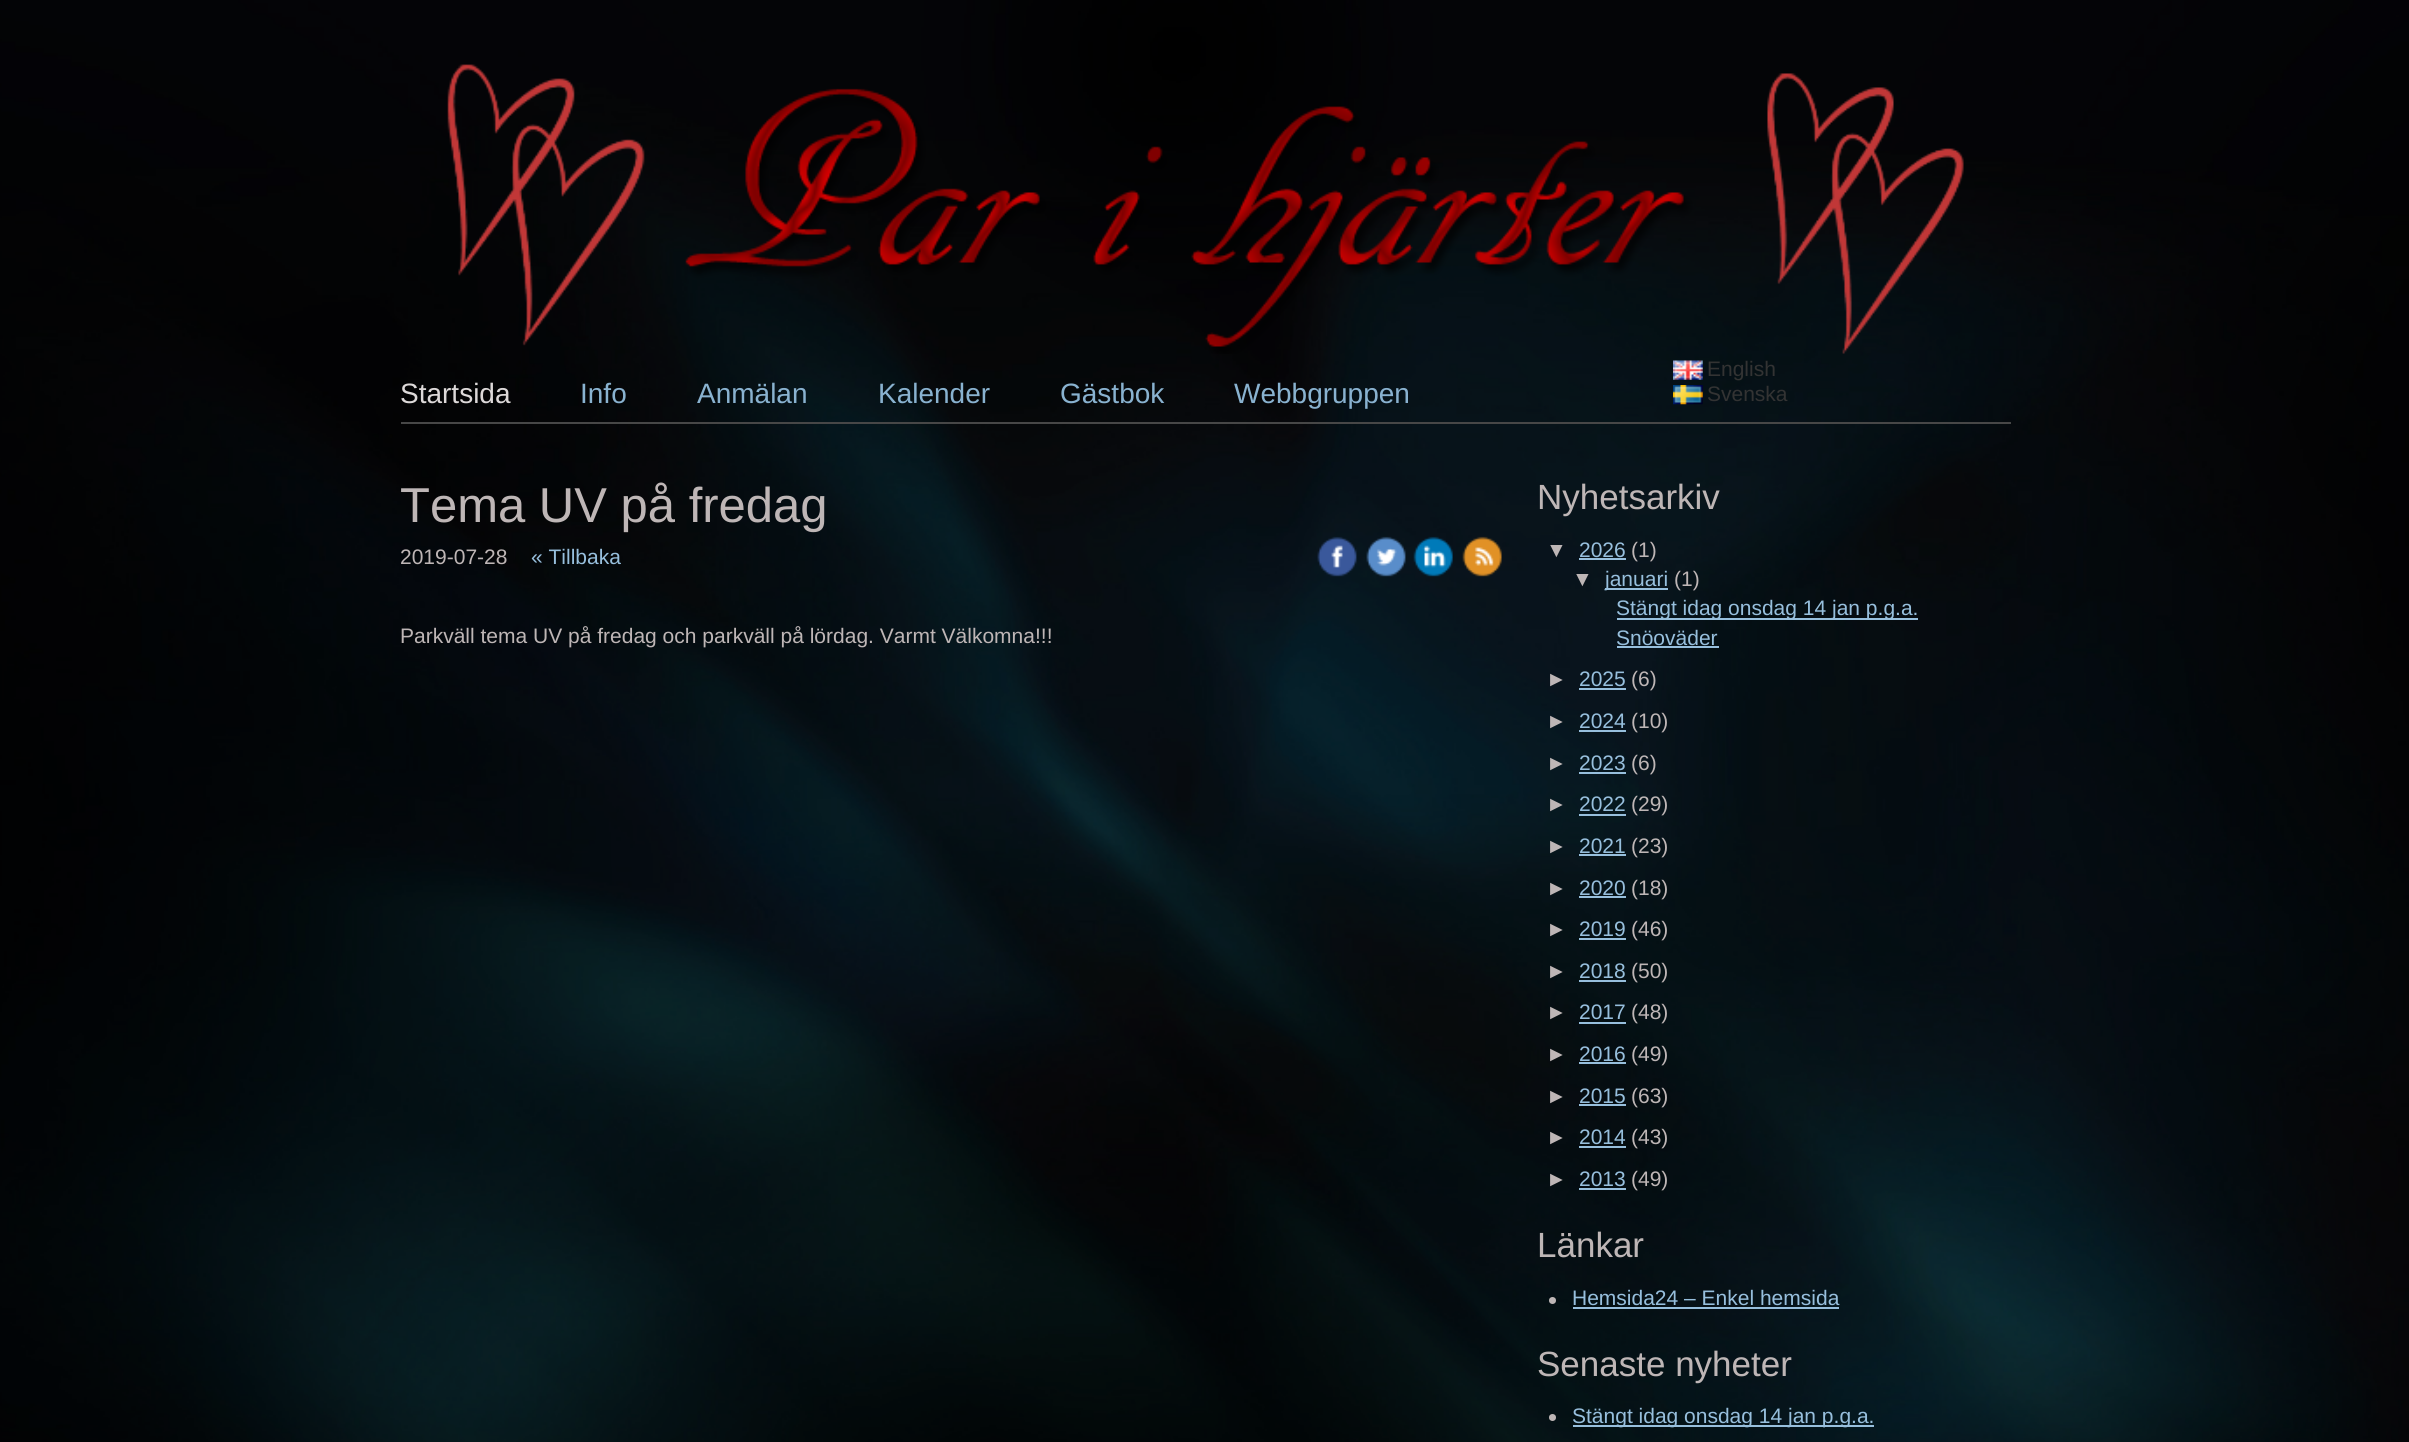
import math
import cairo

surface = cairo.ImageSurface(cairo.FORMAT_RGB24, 2409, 1442)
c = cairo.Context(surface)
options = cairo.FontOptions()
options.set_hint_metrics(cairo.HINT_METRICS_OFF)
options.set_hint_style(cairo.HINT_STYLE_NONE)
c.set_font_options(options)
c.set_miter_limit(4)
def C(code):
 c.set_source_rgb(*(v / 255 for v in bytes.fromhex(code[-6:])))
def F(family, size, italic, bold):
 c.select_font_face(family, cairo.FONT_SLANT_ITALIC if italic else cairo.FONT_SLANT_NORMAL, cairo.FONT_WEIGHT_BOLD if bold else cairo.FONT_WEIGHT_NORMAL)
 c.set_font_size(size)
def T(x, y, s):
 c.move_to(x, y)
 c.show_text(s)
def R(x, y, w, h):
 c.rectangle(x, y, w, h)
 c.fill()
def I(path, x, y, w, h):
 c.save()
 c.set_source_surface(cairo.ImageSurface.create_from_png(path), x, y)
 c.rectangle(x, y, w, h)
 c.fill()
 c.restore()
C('ffffff')
c.paint()
I('1.png',0,0,2409,1442)
C('474747')
R(401,422,1610,2)
F('Liberation Sans',28,0,0)
C('ddd9d9')
T(400,403,'Startsida')
C('89b2d0')
T(580,403,'Info')
T(697,403,'Anmälan')
T(878,403,'Kalender')
T(1060,403,'Gästbok')
T(1234,403,'Webbgruppen')
I('2.png',447,64,1517,290)
I('3.png',1673,360,30,20)
F('Liberation Sans',21,0,0)
C('333333')
T(1707,376,'English')
I('4.png',1673,385,30,20)
T(1707,401,'Svenska')
F('Liberation Sans',49,0,0)
C('beb6b6')
T(400,522,'Tema UV på fredag')
F('Liberation Sans',21,0,0)
T(400,564,'2019-07-28')
C('97bfdd')
T(531,564,'« Tillbaka')
I('5.png',1317,536,40,41)
I('6.png',1366,536,40,41)
I('7.png',1413,536,40,41)
I('8.png',1462,536,40,41)
C('beb6b6')
T(400,643,'Parkväll tema UV på fredag och parkväll på lördag. Varmt Välkomna!!!')
F('Liberation Sans',35,0,0)
T(1537,509,'Nyhetsarkiv')
F('Liberation Sans',21,0,0)
T(1546,557,'▼')
C('97bfdd')
T(1579,557,'2026')
R(1579,558,47,2)
C('beb6b6')
T(1631,557,'(1)')
T(1572,586,'▼')
C('97bfdd')
R(1605,588,63,2)
T(1605,586,'januari')
C('beb6b6')
T(1674,586,'(1)')
C('97bfdd')
R(1617,618,301,2)
T(1616,615,'Stängt idag onsdag 14 jan p.g.a.')
T(1616,645,'Snöoväder')
R(1617,646,102,2)
C('beb6b6')
T(1546,686,'►')
C('97bfdd')
T(1579,686,'2025')
R(1579,688,47,2)
C('beb6b6')
T(1631,686,'(6)')
T(1546,728,'►')
C('97bfdd')
T(1579,728,'2024')
R(1579,730,47,2)
C('beb6b6')
T(1631,728,'(10)')
T(1546,770,'►')
C('97bfdd')
T(1579,770,'2023')
R(1579,772,47,2)
C('beb6b6')
T(1631,770,'(6)')
T(1546,811,'►')
C('97bfdd')
T(1579,811,'2022')
R(1579,814,47,2)
C('beb6b6')
T(1631,811,'(29)')
T(1546,853,'►')
C('97bfdd')
T(1579,853,'2021')
R(1579,854,47,2)
C('beb6b6')
T(1631,853,'(23)')
T(1546,895,'►')
C('97bfdd')
T(1579,895,'2020')
R(1579,896,47,2)
C('beb6b6')
T(1631,895,'(18)')
T(1546,936,'►')
C('97bfdd')
T(1579,936,'2019')
R(1579,938,47,2)
C('beb6b6')
T(1631,936,'(46)')
T(1546,978,'►')
C('97bfdd')
T(1579,978,'2018')
R(1579,980,47,2)
C('beb6b6')
T(1631,978,'(50)')
T(1546,1019,'►')
C('97bfdd')
T(1579,1019,'2017')
R(1579,1022,47,2)
C('beb6b6')
T(1631,1019,'(48)')
T(1546,1061,'►')
C('97bfdd')
T(1579,1061,'2016')
R(1579,1062,47,2)
C('beb6b6')
T(1631,1061,'(49)')
T(1546,1103,'►')
C('97bfdd')
T(1579,1103,'2015')
R(1579,1104,47,2)
C('beb6b6')
T(1631,1103,'(63)')
T(1546,1144,'►')
C('97bfdd')
T(1579,1144,'2014')
R(1579,1146,47,2)
C('beb6b6')
T(1631,1144,'(43)')
T(1546,1186,'►')
C('97bfdd')
T(1579,1186,'2013')
R(1579,1188,47,2)
C('beb6b6')
T(1631,1186,'(49)')
F('Liberation Sans',35,0,0)
T(1537,1257,'Länkar')
c.new_path()
c.arc(1552.5,1300.5,3.5,0,2 * math.pi)
c.fill()
F('Liberation Sans',21,0,0)
C('97bfdd')
T(1572,1305,'Hemsida24 – Enkel hemsida')
R(1573,1307,266,2)
F('Liberation Sans',35,0,0)
C('beb6b6')
T(1537,1376,'Senaste nyheter')
c.new_path()
c.arc(1552.5,1417.5,3.5,0,2 * math.pi)
c.fill()
C('97bfdd')
R(1573,1425,301,2)
F('Liberation Sans',21,0,0)
T(1572,1423,'Stängt idag onsdag 14 jan p.g.a.')
surface.write_to_png('o.png')
